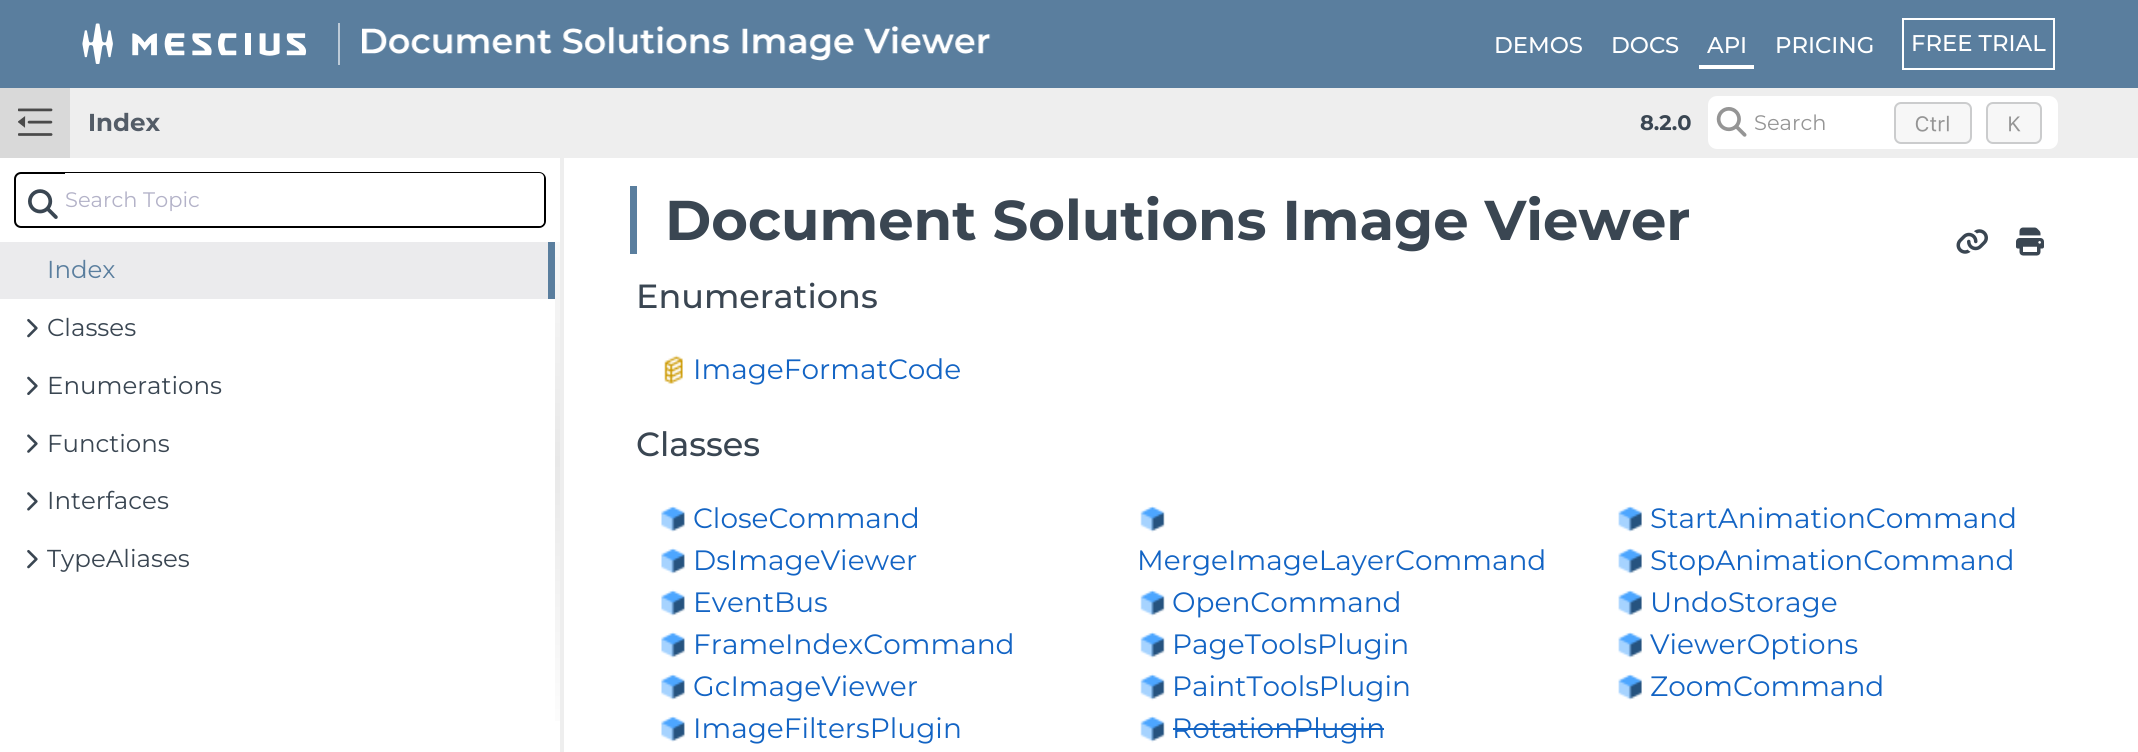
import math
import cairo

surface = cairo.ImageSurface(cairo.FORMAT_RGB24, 2138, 752)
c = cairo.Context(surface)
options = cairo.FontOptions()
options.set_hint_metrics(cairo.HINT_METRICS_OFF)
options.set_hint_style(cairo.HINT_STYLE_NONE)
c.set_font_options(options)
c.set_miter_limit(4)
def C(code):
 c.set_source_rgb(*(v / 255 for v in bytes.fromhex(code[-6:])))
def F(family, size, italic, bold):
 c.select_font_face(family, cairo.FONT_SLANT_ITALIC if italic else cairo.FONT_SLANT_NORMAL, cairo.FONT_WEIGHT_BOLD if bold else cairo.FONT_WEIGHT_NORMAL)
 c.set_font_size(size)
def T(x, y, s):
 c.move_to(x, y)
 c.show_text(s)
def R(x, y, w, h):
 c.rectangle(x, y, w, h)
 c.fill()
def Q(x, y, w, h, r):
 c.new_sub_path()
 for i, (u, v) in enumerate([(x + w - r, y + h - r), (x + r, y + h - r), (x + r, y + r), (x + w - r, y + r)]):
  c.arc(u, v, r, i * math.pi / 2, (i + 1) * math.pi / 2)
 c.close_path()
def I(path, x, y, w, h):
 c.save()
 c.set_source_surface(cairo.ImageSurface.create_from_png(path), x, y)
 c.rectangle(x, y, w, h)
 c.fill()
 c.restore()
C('ffffff')
c.paint()
C('5a7e9e')
R(0,0,2138,88)
I('1.png',82,23,225,41)
C('bdcbd8')
R(338,23,2,42)
I('2.png',362,26,629,35)
F('Montserrat Medium',22.75,0,0)
C('ffffff')
T(1494,53,'DEMOS')
T(1611,53,'DOCS')
T(1707,53,'API')
R(1699,65,55,4)
T(1775,53,'PRICING')
c.rectangle(1903,19,151,50)
c.stroke()
T(1911,51,'FREE TRIAL')
C('eeeeee')
R(70,88,2068,70)
C('d9d9d9')
R(0,88,70,70)
I('3.png',18,108,35,28)
F('Montserrat',24.5,0,1)
C('535c67')
T(88,131,'Index')
F('Montserrat',21,0,1)
C('3a4652')
T(1640,130,'8.2.0')
C('ffffff')
Q(1708,96,350,53,9)
c.fill()
I('4.png',1716,107,31,30)
F('Montserrat',21,0,0)
C('959595')
T(1754,130,'Search')
C('f7f7f7')
Q(1895,103,76,40,6)
c.fill_preserve()
C('cbcccd')
c.stroke()
I('5.png',1915,115,34,17)
C('f7f7f7')
Q(1987,103,54,40,6)
c.fill_preserve()
C('cbcccd')
c.stroke()
I('6.png',2009,116,12,16)
Q(15,173,530,54,6)
C('000000')
c.stroke()
I('7.png',28,189,30,30)
C('ffffff')
c.new_path()
c.move_to(65,173)
c.line_to(539,173)
c.curve_to(542,173,544,175,544,178)
c.line_to(544,221)
c.curve_to(544,224,542,226,539,226)
c.line_to(65,226)
c.close_path()
c.fill()
C('b3b2c8')
T(65,207,'Search Topic')
C('ebebed')
R(0,242,548,57)
C('5a7e9e')
R(548,242,7,57)
F('Montserrat',24.5,0,0)
T(47,278,'Index')
I('8.png',27,318,11,20)
C('3a4652')
T(47,336,'Classes')
I('9.png',27,376,11,19)
T(47,394,'Enumerations')
I('10.png',27,434,11,19)
T(47,452,'Functions')
I('11.png',27,492,11,19)
T(47,509,'Interfaces')
I('8.png',27,549,11,20)
T(47,567,'TypeAliases')
gradient = cairo.LinearGradient(557,158,557,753)
gradient.add_color_stop_rgba(0,1,1,1,1)
gradient.add_color_stop_rgba(.51,0.91,0.91,0.91,1)
gradient.add_color_stop_rgba(1,1,1,1,1)
c.set_source(gradient)
R(555,242,5,479)
C('eeeeee')
R(560,158,4,594)
C('5a7e9e')
R(630,186,7,68)
F('Montserrat',56,0,1)
C('3a4652')
T(665,240,'Document Solutions Image Viewer')
F('Montserrat Medium',33.5,0,0)
T(636,308,'Enumerations')
I('12.png',664,355,19,29)
F('Montserrat',28,0,0)
C('1364c4')
T(693,379,'ImageFormatCode')
F('Montserrat Medium',33.5,0,0)
C('3a4652')
T(636,456,'Classes')
I('13.png',661,505,24,27)
F('Montserrat',28,0,0)
C('1364c4')
T(693,528,'CloseCommand')
I('14.png',1618,506,24,26)
T(1650,528,'StartAnimationCommand')
I('13.png',661,547,24,27)
T(693,570,'DsImageViewer')
I('15.png',1140,505,25,28)
T(1137,570,'MergeImageLayerCommand')
I('14.png',1618,548,24,26)
T(1650,570,'StopAnimationCommand')
I('13.png',661,589,24,27)
T(693,612,'EventBus')
I('15.png',1140,589,25,28)
T(1172,612,'OpenCommand')
I('14.png',1618,590,24,26)
T(1650,612,'UndoStorage')
I('13.png',661,631,24,27)
T(693,654,'FrameIndexCommand')
I('15.png',1140,631,25,28)
T(1172,654,'PageToolsPlugin')
I('14.png',1618,632,24,26)
T(1650,654,'ViewerOptions')
I('13.png',661,673,24,27)
T(693,696,'GcImageViewer')
I('15.png',1140,673,25,28)
T(1172,696,'PaintToolsPlugin')
I('14.png',1618,674,24,26)
T(1650,696,'ZoomCommand')
I('13.png',661,715,24,27)
T(693,738,'ImageFiltersPlugin')
I('15.png',1140,715,25,28)
T(1172,738,'RotationPlugin')
R(1173,728,211,2)
I('16.png',1956,229,32,25)
I('17.png',2016,227,28,29)
surface.write_to_png('o.png')
